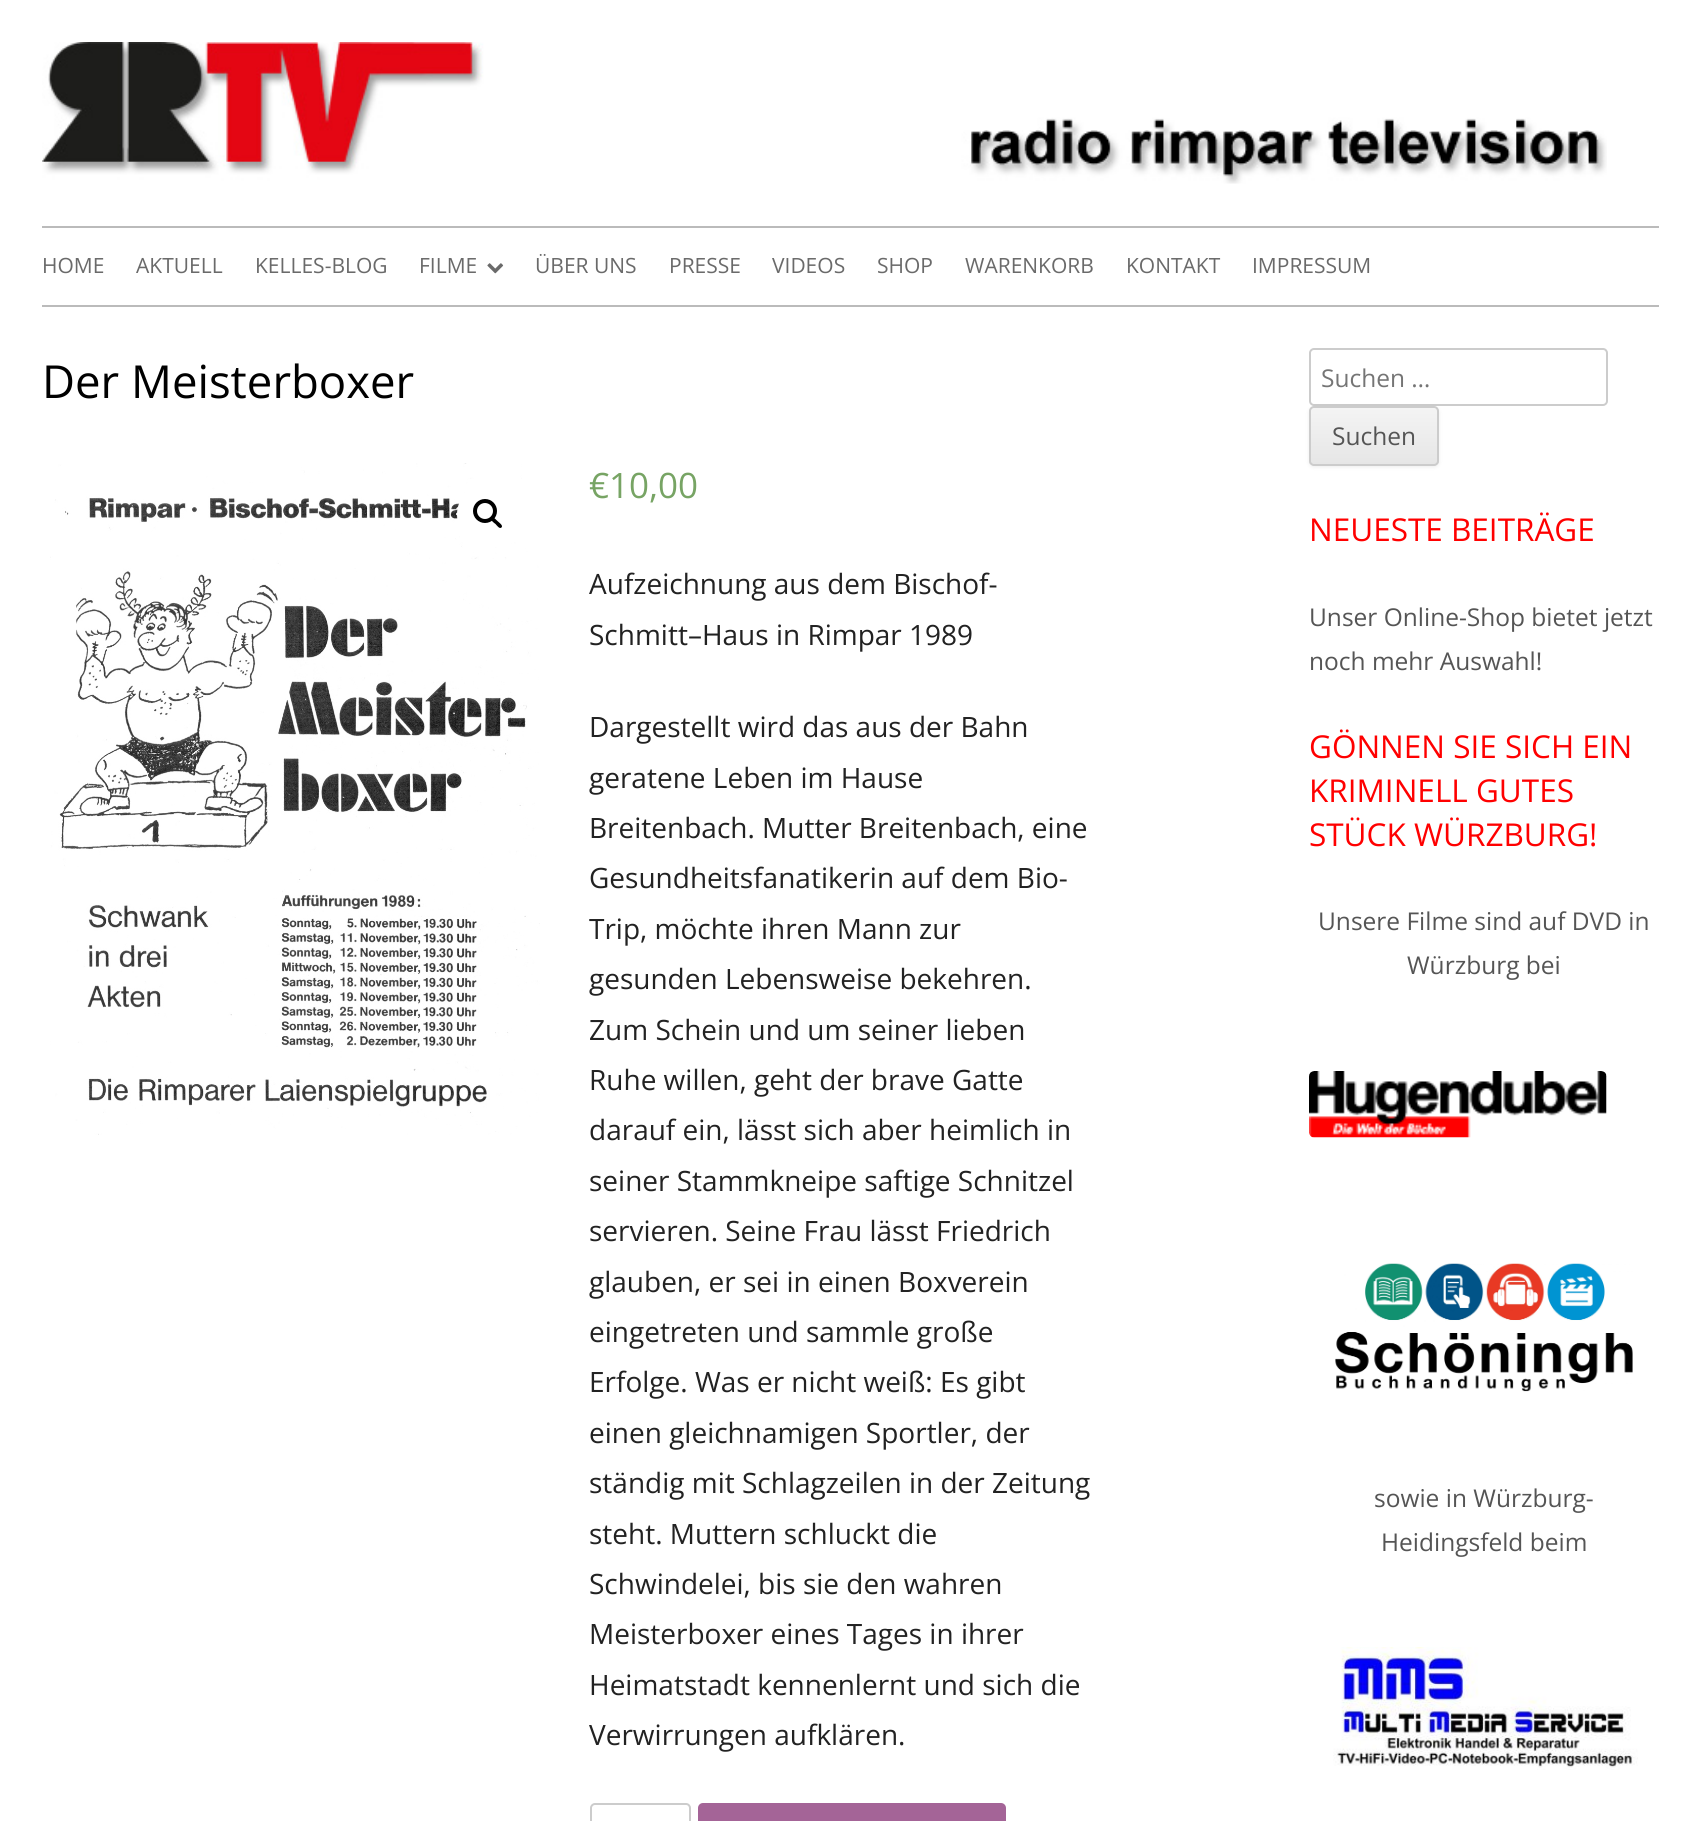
import math
import cairo

surface = cairo.ImageSurface(cairo.FORMAT_RGB24, 1700, 1821)
c = cairo.Context(surface)
options = cairo.FontOptions()
options.set_hint_metrics(cairo.HINT_METRICS_OFF)
options.set_hint_style(cairo.HINT_STYLE_NONE)
c.set_font_options(options)
c.set_miter_limit(4)
def C(code):
 c.set_source_rgb(*(v / 255 for v in bytes.fromhex(code[-6:])))
def F(family, size, italic, bold):
 c.select_font_face(family, cairo.FONT_SLANT_ITALIC if italic else cairo.FONT_SLANT_NORMAL, cairo.FONT_WEIGHT_BOLD if bold else cairo.FONT_WEIGHT_NORMAL)
 c.set_font_size(size)
def T(x, y, s):
 c.move_to(x, y)
 c.show_text(s)
def R(x, y, w, h):
 c.rectangle(x, y, w, h)
 c.fill()
def Q(x, y, w, h, r):
 c.new_sub_path()
 for i, (u, v) in enumerate([(x + w - r, y + h - r), (x + r, y + h - r), (x + r, y + r), (x + w - r, y + r)]):
  c.arc(u, v, r, i * math.pi / 2, (i + 1) * math.pi / 2)
 c.close_path()
def S(x, y, w, h, r, blur, alpha):
 c.push_group_with_content(cairo.CONTENT_ALPHA)
 c.set_operator(cairo.OPERATOR_SOURCE)
 for i in range(15, -16, -2):
  e = blur * i / 6
  if min(w, h) + 2 * e > 0:
   c.set_source_rgba(0, 0, 0, alpha * math.erfc((i - 1) / 8.5) / 2)
   Q(x - e, y - e, w + 2 * e, h + 2 * e, max(0, min(r + e + blur * .6, min(w, h) / 2 + e)))
   c.fill()
 c.mask(c.pop_group())
def I(path, x, y, w, h):
 c.save()
 c.set_source_surface(cairo.ImageSurface.create_from_png(path), x, y)
 c.rectangle(x, y, w, h)
 c.fill()
 c.restore()
C('ffffff')
c.paint()
I('1.png',42,42,1565,142)
C('bbbbbb')
R(42,226,1617,2)
R(42,305,1617,2)
F('Open Sans',21,0,0)
C('6a6a6a')
T(42,273,'HOME')
T(136,273,'AKTUELL')
T(255,273,'KELLES-BLOG')
T(419,273,'FILME')
I('2.png',487,263,17,11)
T(535,273,'ÜBER UNS')
T(669,273,'PRESSE')
T(772,273,'VIDEOS')
T(877,273,'SHOP')
T(965,273,'WARENKORB')
T(1126,273,'KONTAKT')
T(1252,273,'IMPRESSUM')
F('Open Sans',45.5,0,0)
C('000000')
T(42,398,'Der Meisterboxer')
I('3.png',50,463,490,672)
C('ffffff')
c.arc(488.5,514.5,31.5,0,2 * math.pi)
c.fill()
c.arc(485,511,10,0,2 * math.pi)
C('000000')
c.set_line_width(4)
c.stroke()
c.new_path()
c.move_to(491.5,518)
c.curve_to(493.5,516,496.5,520.5,498,521.5)
c.curve_to(499,522.5,503.5,525.5,501.5,527.5)
c.curve_to(499.5,529.5,496.5,525,495.5,524)
c.curve_to(494,523,489.5,519.5,491.5,518)
c.close_path()
c.fill()
F('Open Sans',35,0,0)
C('77a464')
T(589,498,'€10,00')
F('Open Sans',28,0,0)
C('222222')
T(589,594,'Aufzeichnung aus dem Bischof-')
T(589,645,'Schmitt–Haus in Rimpar 1989')
T(589,737,'Dargestellt wird das aus der Bahn')
T(589,788,'geratene Leben im Hause')
T(589,838,'Breitenbach. Mutter Breitenbach, eine')
T(589,888,'Gesundheitsfanatikerin auf dem Bio-')
T(589,939,'Trip, möchte ihren Mann zur')
T(589,989,'gesunden Lebensweise bekehren.')
T(589,1040,'Zum Schein und um seiner lieben')
T(589,1090,'Ruhe willen, geht der brave Gatte')
T(589,1140,'darauf ein, lässt sich aber heimlich in')
T(589,1191,'seiner Stammkneipe saftige Schnitzel')
T(589,1241,'servieren. Seine Frau lässt Friedrich')
T(589,1292,'glauben, er sei in einen Boxverein')
T(589,1342,'eingetreten und sammle große')
T(589,1392,'Erfolge. Was er nicht weiß: Es gibt')
T(589,1443,'einen gleichnamigen Sportler, der')
T(589,1493,'ständig mit Schlagzeilen in der Zeitung')
T(589,1544,'steht. Muttern schluckt die')
T(589,1594,'Schwindelei, bis sie den wahren')
T(589,1644,'Meisterboxer eines Tages in ihrer')
T(589,1695,'Heimatstadt kennenlernt und sich die')
T(589,1745,'Verwirrungen aufklären.')
Q(591,1804,99,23,4)
C('cccccc')
c.set_line_width(2)
c.stroke()
C('a46497')
Q(698,1803,308,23,5)
c.fill()
Q(1310,349,297,56,4)
C('cccccc')
c.stroke()
F('Open Sans',24.5,0,0)
C('757575')
T(1321,387,'Suchen …')
C('404040')
S(1309,408,130,59,5,2,.1)
c.save()
Q(1309,406,130,60,5)
c.clip()
gradient = cairo.LinearGradient(1374,408,1374,464)
gradient.add_color_stop_rgba(0,0.957,0.957,0.957,1)
gradient.add_color_stop_rgba(1,0.902,0.902,0.902,1)
c.set_source(gradient)
R(1309,408,130,56)
c.restore()
Q(1310,407,128,58,4)
C('cccccc')
c.stroke()
C('555555')
T(1332,445,'Suchen')
F('Open Sans',31.5,0,0)
C('ff0000')
T(1309,541,'NEUESTE BEITRÄGE')
F('Open Sans',24.5,0,0)
C('555555')
T(1309,626,'Unser Online-Shop bietet jetzt')
T(1309,670,'noch mehr Auswahl!')
F('Open Sans',31.5,0,0)
C('ff0000')
T(1309,758,'GÖNNEN SIE SICH EIN')
T(1309,802,'KRIMINELL GUTES')
T(1309,846,'STÜCK WÜRZBURG!')
F('Open Sans',24.5,0,0)
C('555555')
T(1318,930,'Unsere Filme sind auf DVD in')
T(1407,974,'Würzburg bei')
I('4.png',1309,1071,298,67)
I('5.png',1335,1263,298,129)
T(1374,1507,'sowie in Würzburg-')
T(1381,1551,'Heidingsfeld beim')
I('6.png',1333,1647,305,123)
surface.write_to_png('o.png')
